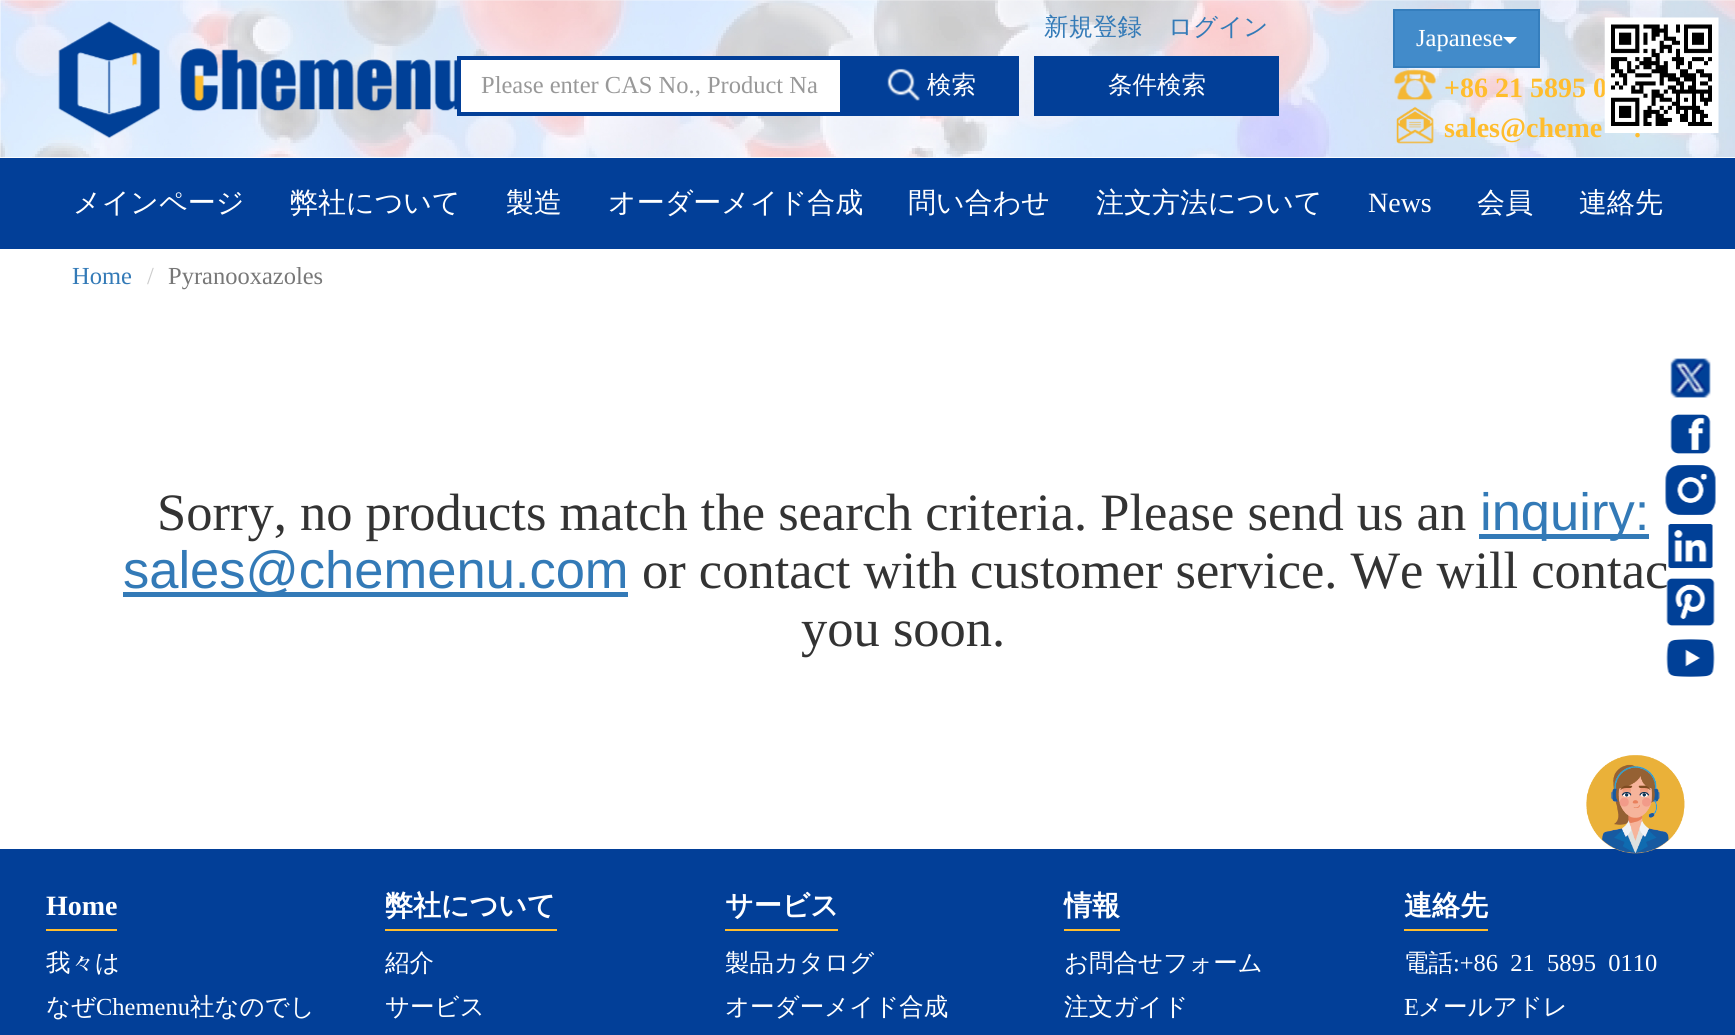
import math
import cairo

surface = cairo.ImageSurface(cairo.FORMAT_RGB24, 1735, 1035)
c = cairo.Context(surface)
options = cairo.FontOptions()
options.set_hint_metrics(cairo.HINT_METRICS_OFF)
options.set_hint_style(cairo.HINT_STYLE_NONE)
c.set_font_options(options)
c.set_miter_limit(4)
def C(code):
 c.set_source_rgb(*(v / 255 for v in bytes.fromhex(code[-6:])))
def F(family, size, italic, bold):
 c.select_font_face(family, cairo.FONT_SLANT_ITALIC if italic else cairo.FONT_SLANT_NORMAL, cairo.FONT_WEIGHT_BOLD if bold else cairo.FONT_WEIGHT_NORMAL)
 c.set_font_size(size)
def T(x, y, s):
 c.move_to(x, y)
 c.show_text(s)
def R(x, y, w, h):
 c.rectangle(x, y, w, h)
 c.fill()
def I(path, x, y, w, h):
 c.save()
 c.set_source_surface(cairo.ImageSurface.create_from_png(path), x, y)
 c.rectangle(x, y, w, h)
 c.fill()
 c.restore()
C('ffffff')
c.paint()
I('1.png',0,0,1735,158)
I('2.png',58,21,399,118)
F('WenQuanYi Zen Hei Medium',24.5,0,0)
C('337ab7')
T(1044,35,'新規登録')
T(1168,35,'ログイン')
C('ffffff')
c.rectangle(459,58,383,56)
c.fill_preserve()
C('023f98')
c.set_line_width(4)
c.stroke()
F('Liberation Serif',24.5,0,0)
C('999999')
T(481,93,'Please enter CAS No., Product Na')
C('023f98')
R(844,56,175,60)
I('3.png',887,68,33,33)
F('WenQuanYi Zen Hei Medium',24.5,0,0)
C('ffffff')
T(927,93,'検索')
C('023f98')
R(1034,56,245,60)
C('ffffff')
T(1108,93,'条件検索')
C('428bca')
c.rectangle(1394,10,145,57)
c.fill_preserve()
C('357ebd')
c.set_line_width(2)
c.stroke()
F('Liberation Serif',24.5,0,0)
C('ffffff')
T(1416,46,'Japanese')
c.new_path()
c.move_to(1503,37)
c.line_to(1517,37)
c.line_to(1510,44)
c.close_path()
c.fill()
I('4.png',1394,69,42,32)
F('Liberation Serif',28,0,1)
C('ffbd2e')
T(1444,97,'+86 21 5895 0')
I('5.png',1396,106,38,38)
T(1444,137,'sales@cheme')
T(1634,137,'.')
I('6.png',1604,17,115,116)
I('7.png',1670,358,41,40)
I('8.png',1670,414,41,40)
I('9.png',1665,465,51,50)
I('10.png',1668,524,45,45)
F('Liberation Serif',52.5,0,0)
C('333333')
T(642,588,'or contact with customer service. We will contac')
I('11.png',1666,578,49,48)
I('12.png',1666,639,49,38)
C('023f98')
R(0,849,1735,186)
I('13.png',1586,755,99,99)
R(0,158,1735,91)
F('WenQuanYi Zen Hei Medium',28,0,0)
C('ffffff')
T(73,212,'メインページ')
T(290,212,'弊社について')
T(506,212,'製造')
T(608,212,'オーダーメイド合成')
T(908,212,'問い合わせ')
T(1096,212,'注文方法について')
F('Liberation Serif',28,0,0)
T(1368,212,'News')
F('WenQuanYi Zen Hei Medium',28,0,0)
T(1477,212,'会員')
T(1579,212,'連絡先')
F('Liberation Serif',24.5,0,0)
C('337ab7')
T(72,284,'Home')
C('cccccc')
T(147,284,'/')
C('777777')
T(168,284,'Pyranooxazoles')
F('Liberation Serif',52.5,0,0)
C('333333')
T(157,530,'Sorry, no products match the search criteria. Please send us an')
C('337ab7')
R(1479,534,170,5)
F('Liberation Sans',52.5,0,0)
T(1480,530,'inquiry:')
R(123,592,505,5)
T(123,588,'sales@chemenu.com')
F('Liberation Serif',52.5,0,0)
C('333333')
T(801,646,'you soon.')
F('Liberation Serif',28,0,1)
C('ffffff')
T(46,915,'Home')
C('ffbd2e')
R(46,929,71,2)
F('WenQuanYi Zen Hei Medium',24.5,0,0)
C('ffffff')
T(46,971,'我々は')
T(46,1015,'なぜ')
F('Liberation Serif',24.5,0,0)
T(96,1015,'Chemenu')
F('WenQuanYi Zen Hei Medium',24.5,0,0)
T(190,1015,'社なのでし')
F('WenQuanYi Zen Hei',28,0,1)
T(385,915,'弊社について')
C('ffbd2e')
R(385,929,172,2)
F('WenQuanYi Zen Hei Medium',24.5,0,0)
C('ffffff')
T(385,971,'紹介')
T(385,1015,'サービス')
F('WenQuanYi Zen Hei',28,0,1)
T(725,915,'サービス')
C('ffbd2e')
R(725,929,113,2)
F('WenQuanYi Zen Hei Medium',24.5,0,0)
C('ffffff')
T(725,971,'製品カタログ')
T(725,1015,'オーダーメイド合成')
F('WenQuanYi Zen Hei',28,0,1)
T(1064,915,'情報')
C('ffbd2e')
R(1064,929,56,2)
F('WenQuanYi Zen Hei Medium',24.5,0,0)
C('ffffff')
T(1064,971,'お問合せフォーム')
T(1064,1015,'注文ガイド')
F('WenQuanYi Zen Hei',28,0,1)
T(1404,915,'連絡先')
C('ffbd2e')
R(1404,929,84,2)
F('WenQuanYi Zen Hei Medium',24.5,0,0)
C('ffffff')
T(1404,971,'電話')
F('Liberation Serif',24.5,0,0)
T(1453,971,':+86 21 5895 0110')
T(1404,1015,'E')
F('WenQuanYi Zen Hei Medium',24.5,0,0)
T(1418,1015,'メールアドレ')
surface.write_to_png('o.png')
